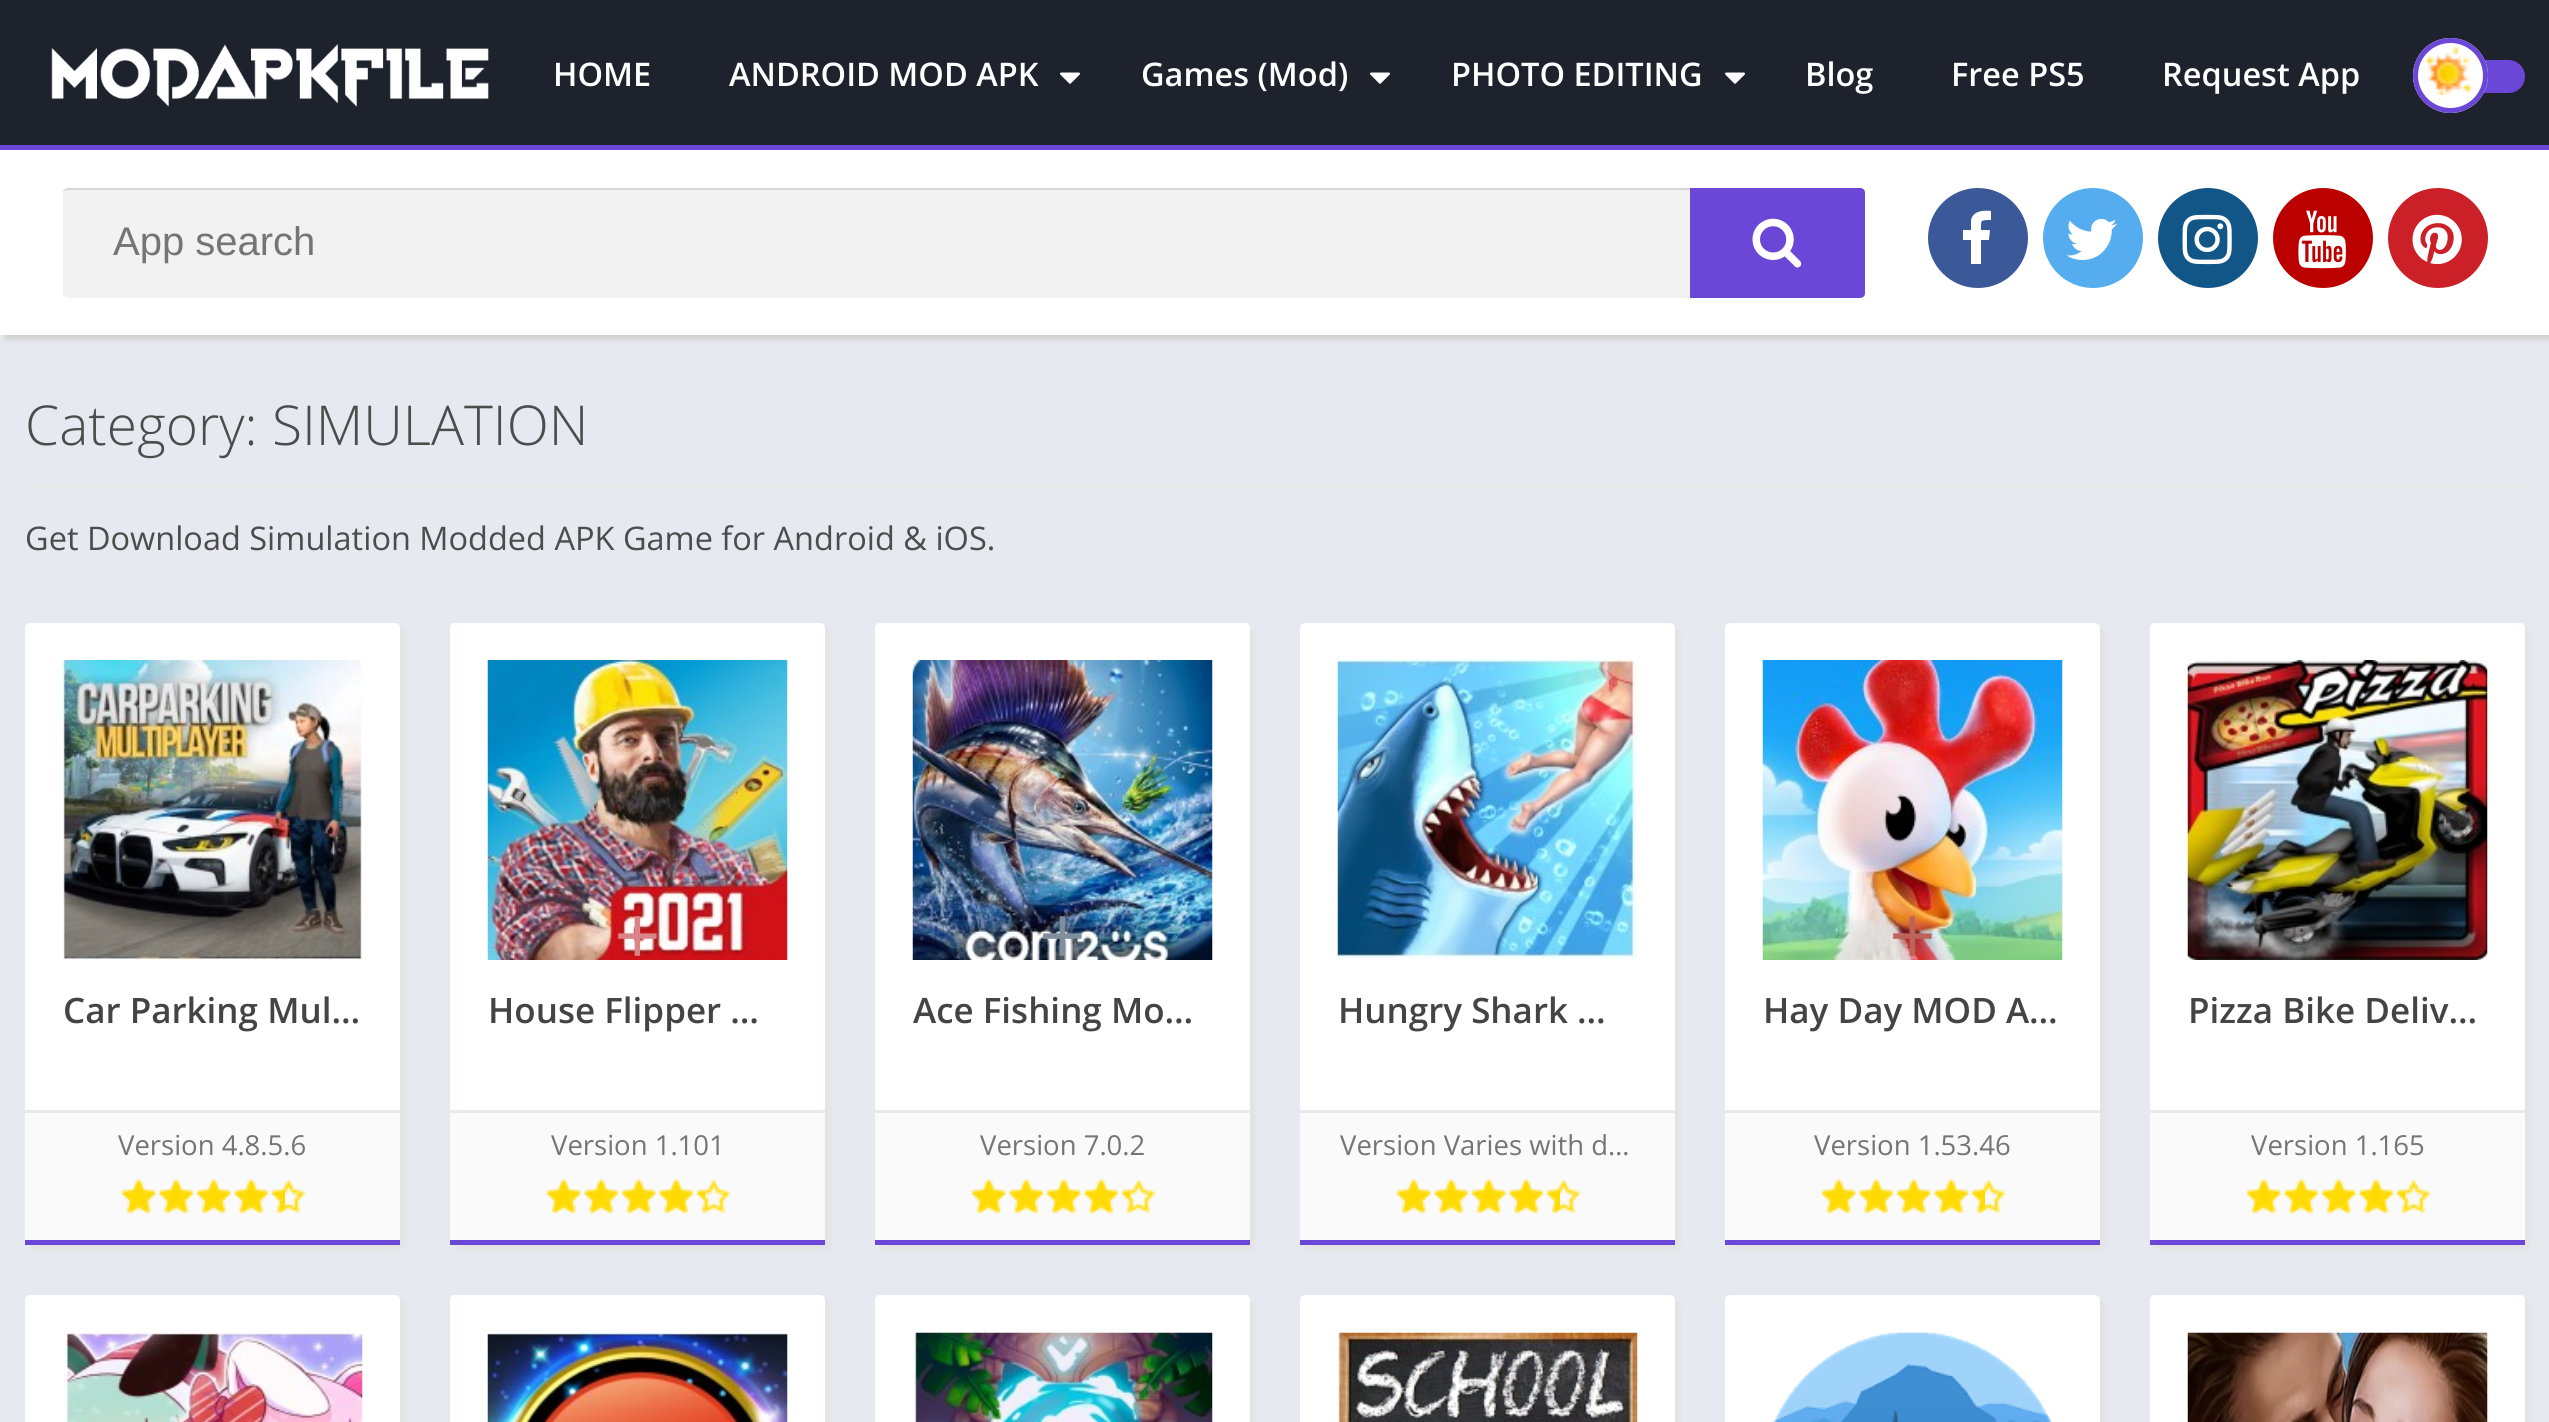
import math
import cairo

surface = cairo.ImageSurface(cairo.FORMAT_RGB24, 2549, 1422)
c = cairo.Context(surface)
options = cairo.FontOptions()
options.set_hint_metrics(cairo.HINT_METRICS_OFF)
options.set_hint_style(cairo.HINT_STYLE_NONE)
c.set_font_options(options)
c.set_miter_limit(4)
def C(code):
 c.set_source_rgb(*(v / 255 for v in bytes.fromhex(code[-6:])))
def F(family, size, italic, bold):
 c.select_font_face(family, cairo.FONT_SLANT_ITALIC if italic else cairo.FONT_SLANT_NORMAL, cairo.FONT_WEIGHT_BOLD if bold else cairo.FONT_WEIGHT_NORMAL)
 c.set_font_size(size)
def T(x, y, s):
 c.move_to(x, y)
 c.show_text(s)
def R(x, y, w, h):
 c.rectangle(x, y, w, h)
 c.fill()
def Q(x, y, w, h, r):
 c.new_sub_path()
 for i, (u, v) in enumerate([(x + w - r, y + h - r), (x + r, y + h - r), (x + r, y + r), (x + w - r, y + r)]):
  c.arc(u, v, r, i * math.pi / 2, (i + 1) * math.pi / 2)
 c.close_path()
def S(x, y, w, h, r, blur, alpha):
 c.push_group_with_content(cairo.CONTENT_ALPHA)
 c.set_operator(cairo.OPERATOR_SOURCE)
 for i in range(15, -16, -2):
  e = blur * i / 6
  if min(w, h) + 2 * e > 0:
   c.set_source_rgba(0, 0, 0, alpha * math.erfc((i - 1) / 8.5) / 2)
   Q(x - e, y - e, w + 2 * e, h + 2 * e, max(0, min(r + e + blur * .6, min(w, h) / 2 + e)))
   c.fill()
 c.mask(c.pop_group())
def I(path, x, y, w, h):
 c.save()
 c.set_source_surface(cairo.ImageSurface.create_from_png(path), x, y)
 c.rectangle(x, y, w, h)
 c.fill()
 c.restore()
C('e6e9ef')
c.paint()
C('d2d1d1')
S(5,5,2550,335,0,2.5,1)
C('1d222d')
R(0,0,2549,145)
C('6a47d6')
R(0,145,2549,5)
I('1.png',51,44,438,63)
F('Open Sans SemiBold',32.5,0,0)
C('ffffff')
T(553,86,'HOME')
T(729,86,'ANDROID MOD APK')
I('2.png',1060,72,20,12)
T(1141,86,'Games (Mod)')
I('2.png',1370,72,20,12)
T(1451,86,'PHOTO EDITING')
I('2.png',1725,72,20,12)
T(1805,86,'Blog')
T(1951,86,'Free PS5')
T(2162,86,'Request App')
C('6a47d6')
Q(2413,60,112,33,16.5)
c.fill()
C('ffffff')
c.arc(2450.5,75.5,37.5,0,2 * math.pi)
c.fill()
I('3.png',2424,47,49,48)
c.arc(2450.5,75.5,35,0,2 * math.pi)
C('6a47d6')
c.set_line_width(5)
c.stroke()
C('ffffff')
R(0,150,2549,185)
C('f2f2f2')
Q(63,188,1802,110,5)
c.fill()
c.set_source_rgba(0,0,0,0.12)
c.new_path()
c.move_to(68,190)
c.line_to(1860,190)
c.curve_to(1863,190,1865,192,1865,195)
c.line_to(1865,193)
c.curve_to(1865,190,1863,188,1860,188)
c.line_to(68,188)
c.curve_to(66,188,63,190,63,192)
c.curve_to(64,191,66,190,68,190)
c.close_path()
c.fill()
F('Liberation Sans',40,0,0)
C('757575')
T(113,255,'App search')
C('6a47d6')
c.new_path()
c.move_to(1690,188)
c.line_to(1860,188)
c.curve_to(1863,188,1865,190,1865,193)
c.line_to(1865,293)
c.curve_to(1865,296,1863,298,1860,298)
c.line_to(1690,298)
c.close_path()
c.fill()
I('4.png',1752,218,50,50)
C('3b5998')
c.arc(1978,238,50,0,2 * math.pi)
c.fill()
C('ffffff')
c.new_path()
c.move_to(1991,211)
c.line_to(1991,220)
c.curve_to(1980,220,1981,220,1981,230)
c.line_to(1990,230)
c.line_to(1989,240)
c.line_to(1981,240)
c.line_to(1981,264)
c.line_to(1971,264)
c.line_to(1971,240)
c.line_to(1963,240)
c.line_to(1963,230)
c.line_to(1971,230)
c.line_to(1971,220)
c.curve_to(1973,211,1983,210,1991,211)
c.close_path()
c.fill()
C('55acee')
c.arc(2093,238,50,0,2 * math.pi)
c.fill()
I('5.png',2066,218,51,42)
C('125688')
c.arc(2208,238,50,0,2 * math.pi)
c.fill()
I('6.png',2182,214,50,51)
C('bb0000')
c.arc(2323,238,50,0,2 * math.pi)
c.fill()
I('7.png',2298,210,48,59)
C('cb2027')
c.arc(2438,238,50,0,2 * math.pi)
c.fill()
I('8.png',2412,214,50,51)
C('eaeaea')
R(25,485,2500,3)
F('Open Sans Light',55,0,0)
C('4c4c4c')
T(25,445,'Category: SIMULATION')
F('Open Sans',32.5,0,0)
T(25,550,'Get Download Simulation Modded APK Game for Android & iOS.')
C('e3e3e3')
S(30,628,375,622,5,2.5,1)
C('ffffff')
Q(25,623,375,622,5)
c.fill()
I('9.png',62,660,300,300)
F('Open Sans SemiBold',35,0,0)
C('444444')
T(63,1023,'Car Parking Mul…')
C('fafafa')
R(25,1113,375,127)
C('eaeaea')
R(25,1110,375,3)
C('6a47d6')
R(25,1240,375,5)
F('Open Sans',27.5,0,0)
C('757575')
T(118,1155,'Version 4.8.5.6')
I('10.png',121,1179,185,35)
I('11.png',121,1179,164,35)
C('e3e3e3')
S(455,628,375,622,5,2.5,1)
C('ffffff')
Q(450,623,375,622,5)
c.fill()
I('12.png',487,660,301,300)
F('Open Sans',82,0,0)
C('da8487')
T(614,965,'+')
F('Open Sans SemiBold',35,0,0)
C('444444')
T(488,1023,'House Flipper …')
C('fafafa')
R(450,1113,375,127)
C('eaeaea')
R(450,1110,375,3)
C('6a47d6')
R(450,1240,375,5)
F('Open Sans',27.5,0,0)
C('757575')
T(551,1155,'Version 1.101')
I('13.png',546,1179,185,35)
I('14.png',546,1179,159,35)
C('e3e3e3')
S(880,628,375,622,5,2.5,1)
C('ffffff')
Q(875,623,375,622,5)
c.fill()
I('15.png',912,660,301,300)
F('Open Sans',82,0,0)
C('818e9d')
T(1039,965,'+')
F('Open Sans SemiBold',35,0,0)
C('444444')
T(913,1023,'Ace Fishing Mo…')
C('fafafa')
R(875,1113,375,127)
C('eaeaea')
R(875,1110,375,3)
C('6a47d6')
R(875,1240,375,5)
F('Open Sans',27.5,0,0)
C('757575')
T(980,1155,'Version 7.0.2')
I('16.png',971,1179,185,35)
I('17.png',971,1179,159,35)
C('e3e3e3')
S(1305,628,375,622,5,2.5,1)
C('ffffff')
Q(1300,623,375,622,5)
c.fill()
I('18.png',1337,660,300,300)
F('Open Sans SemiBold',35,0,0)
C('444444')
T(1338,1023,'Hungry Shark …')
C('fafafa')
R(1300,1113,375,127)
C('eaeaea')
R(1300,1110,375,3)
C('6a47d6')
R(1300,1240,375,5)
F('Open Sans',27.5,0,0)
C('757575')
T(1340,1155,'Version Varies with d…')
I('19.png',1396,1179,185,35)
I('20.png',1396,1179,164,35)
C('e3e3e3')
S(1730,628,375,622,5,2.5,1)
C('ffffff')
Q(1725,623,375,622,5)
c.fill()
I('21.png',1762,660,301,300)
F('Open Sans',82,0,0)
C('bd6359')
T(1889,965,'+')
F('Open Sans SemiBold',35,0,0)
C('444444')
T(1763,1023,'Hay Day MOD A…')
C('fafafa')
R(1725,1113,375,127)
C('eaeaea')
R(1725,1110,375,3)
C('6a47d6')
R(1725,1240,375,5)
F('Open Sans',27.5,0,0)
C('757575')
T(1814,1155,'Version 1.53.46')
I('22.png',1821,1179,185,35)
I('23.png',1821,1179,164,35)
C('e3e3e3')
S(2155,628,375,622,5,2.5,1)
C('ffffff')
Q(2150,623,375,622,5)
c.fill()
I('24.png',2187,660,301,300)
F('Open Sans SemiBold',35,0,0)
C('444444')
T(2188,1023,'Pizza Bike Deliv…')
C('fafafa')
R(2150,1113,375,127)
C('eaeaea')
R(2150,1110,375,3)
C('6a47d6')
R(2150,1240,375,5)
F('Open Sans',27.5,0,0)
C('757575')
T(2251,1155,'Version 1.165')
I('25.png',2246,1179,185,35)
I('26.png',2246,1179,159,35)
C('e3e3e3')
S(30,1300,375,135,5,2.5,1)
C('ffffff')
Q(25,1295,375,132,5)
c.fill()
I('27.png',63,1332,300,90)
C('e3e3e3')
S(455,1300,375,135,5,2.5,1)
C('ffffff')
Q(450,1295,375,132,5)
c.fill()
I('28.png',487,1332,301,90)
C('e3e3e3')
S(880,1300,375,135,5,2.5,1)
C('ffffff')
Q(875,1295,375,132,5)
c.fill()
I('29.png',913,1332,300,90)
C('e3e3e3')
S(1305,1300,375,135,5,2.5,1)
C('ffffff')
Q(1300,1295,375,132,5)
c.fill()
I('30.png',1337,1332,301,90)
C('e3e3e3')
S(1730,1300,375,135,5,2.5,1)
C('ffffff')
Q(1725,1295,375,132,5)
c.fill()
I('31.png',1773,1332,279,90)
C('e3e3e3')
S(2155,1300,375,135,5,2.5,1)
C('ffffff')
Q(2150,1295,375,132,5)
c.fill()
I('32.png',2187,1332,301,90)
surface.write_to_png('o.png')
